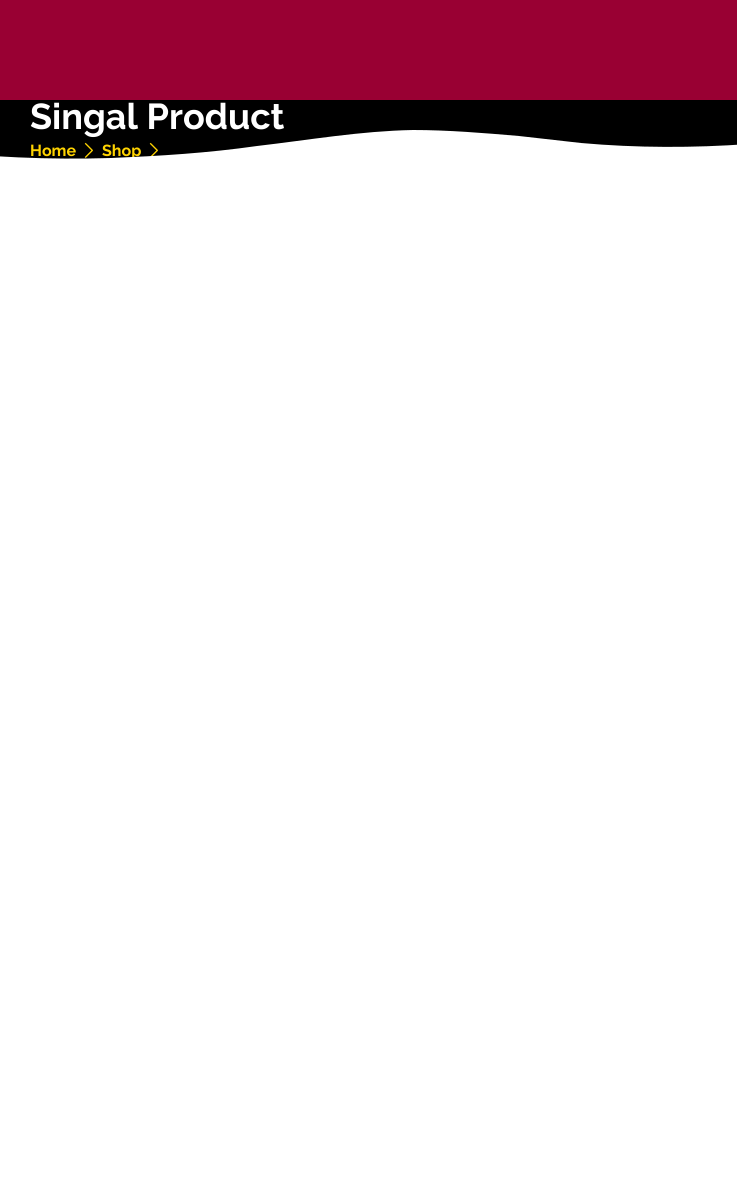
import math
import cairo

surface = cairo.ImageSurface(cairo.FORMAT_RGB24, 737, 1178)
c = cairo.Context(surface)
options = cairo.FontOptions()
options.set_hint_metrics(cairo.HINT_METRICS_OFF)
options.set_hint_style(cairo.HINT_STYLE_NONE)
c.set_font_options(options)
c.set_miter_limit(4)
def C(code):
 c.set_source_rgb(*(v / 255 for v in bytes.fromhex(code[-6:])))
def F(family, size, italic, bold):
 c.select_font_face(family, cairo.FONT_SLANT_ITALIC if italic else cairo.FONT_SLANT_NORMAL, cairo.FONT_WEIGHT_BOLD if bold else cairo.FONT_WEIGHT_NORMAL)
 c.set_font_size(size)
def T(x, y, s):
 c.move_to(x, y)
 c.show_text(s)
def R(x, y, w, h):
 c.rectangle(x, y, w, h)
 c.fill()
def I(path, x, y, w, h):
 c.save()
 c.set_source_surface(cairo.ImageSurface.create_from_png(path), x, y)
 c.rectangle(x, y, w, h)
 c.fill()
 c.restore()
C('ffffff')
c.paint()
C('990033')
R(0,0,737,100)
C('000000')
R(0,100,737,59)
F('Raleway',36,0,1)
C('ffffff')
T(30,129,'Singal Product')
F('Raleway',16,0,1)
C('ffd300')
T(30,156,'Home')
I('1.png',84,142,9,16)
T(102,156,'Shop')
I('2.png',149,142,9,15)
C('ffffff')
c.new_path()
c.move_to(111,158)
c.curve_to(160,156,208,153,257,146)
c.curve_to(309,140,360,131,413,130)
c.curve_to(448,130,484,133,519,136)
c.line_to(581,143)
c.curve_to(637,148,693,148,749,144)
c.curve_to(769,143,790,141,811,138)
c.line_to(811,160)
c.line_to(-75,160)
c.line_to(-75,150)
c.curve_to(-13,157,49,160,111,158)
c.close_path()
c.fill()
surface.write_to_png('o.png')
